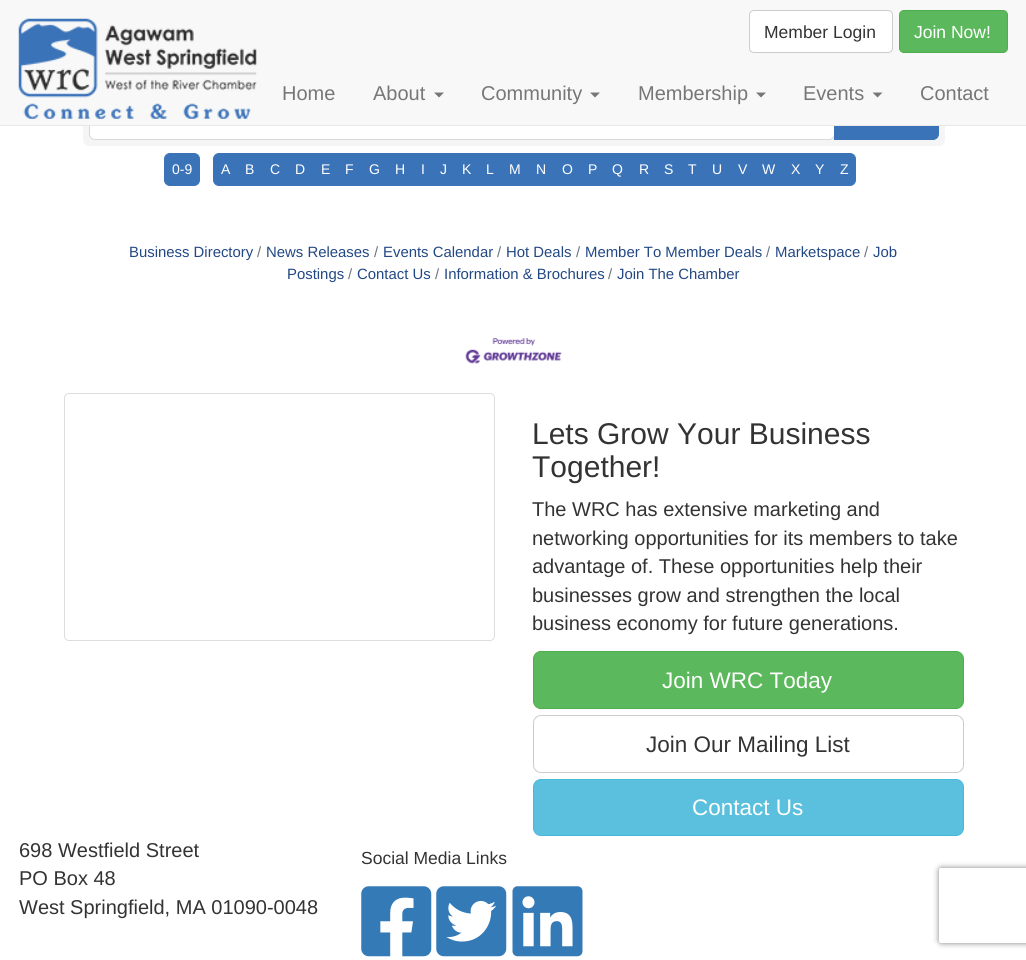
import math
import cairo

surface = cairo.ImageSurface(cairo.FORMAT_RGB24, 1026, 960)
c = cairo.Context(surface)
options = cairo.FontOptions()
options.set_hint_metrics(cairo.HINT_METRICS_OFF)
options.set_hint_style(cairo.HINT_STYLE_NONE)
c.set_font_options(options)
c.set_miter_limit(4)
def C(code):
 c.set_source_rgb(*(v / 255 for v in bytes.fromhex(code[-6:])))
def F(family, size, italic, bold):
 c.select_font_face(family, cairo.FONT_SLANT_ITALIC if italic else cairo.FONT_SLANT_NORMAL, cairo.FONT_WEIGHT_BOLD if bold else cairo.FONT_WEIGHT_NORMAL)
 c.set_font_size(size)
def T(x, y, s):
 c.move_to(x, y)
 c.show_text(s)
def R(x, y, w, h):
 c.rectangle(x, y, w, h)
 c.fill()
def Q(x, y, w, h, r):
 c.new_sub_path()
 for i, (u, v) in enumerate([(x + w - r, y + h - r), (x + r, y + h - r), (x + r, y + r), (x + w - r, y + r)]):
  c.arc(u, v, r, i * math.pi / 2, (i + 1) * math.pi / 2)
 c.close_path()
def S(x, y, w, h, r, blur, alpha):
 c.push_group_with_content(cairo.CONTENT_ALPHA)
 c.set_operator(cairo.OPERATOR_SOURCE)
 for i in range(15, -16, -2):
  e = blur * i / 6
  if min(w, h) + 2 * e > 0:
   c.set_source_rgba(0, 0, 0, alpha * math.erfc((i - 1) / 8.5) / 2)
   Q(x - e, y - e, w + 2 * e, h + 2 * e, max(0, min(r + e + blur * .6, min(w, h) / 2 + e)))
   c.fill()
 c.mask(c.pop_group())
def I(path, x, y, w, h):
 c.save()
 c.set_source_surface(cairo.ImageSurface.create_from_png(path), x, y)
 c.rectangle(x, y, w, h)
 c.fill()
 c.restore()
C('ffffff')
c.paint()
C('f5f5f5')
Q(83,86,862,60,6)
c.fill()
C('ffffff')
Q(90,94,744,45,5)
c.fill()
Q(89.5,93.5,745,46,5.5)
c.set_source_rgba(0,0,0,0.12)
c.set_line_width(1)
c.stroke()
C('3b73b9')
c.new_path()
c.move_to(834.5,93.5)
c.line_to(933,93.5)
c.curve_to(936,93.5,938.5,96,938.5,99)
c.line_to(938.5,134)
c.curve_to(938.5,137,936,139.5,933,139.5)
c.line_to(834.5,139.5)
c.close_path()
c.fill_preserve()
c.stroke()
C('f8f8f8')
R(0,0,1026,125)
C('e7e7e7')
R(0,125,1026,1)
I('1.png',18,18,239,101)
C('ffffff')
Q(749.5,10.5,143,42,4.5)
c.fill_preserve()
C('cccccc')
c.stroke()
F('Liberation Sans',17.5,0,0)
C('333333')
T(764,38,'Member Login')
C('5cb85c')
Q(899.5,10.5,108,42,4.5)
c.fill_preserve()
C('4cae4c')
c.stroke()
C('ffffff')
T(914,38,'Join Now!')
F('Liberation Sans',20,0,0)
C('777777')
T(282,100,'Home')
T(373,100,'About')
c.new_path()
c.move_to(434,92.5)
c.line_to(444,92.5)
c.line_to(439,97.5)
c.close_path()
c.fill()
T(481,100,'Community')
c.new_path()
c.move_to(590,92.5)
c.line_to(600,92.5)
c.line_to(595,97.5)
c.close_path()
c.fill()
T(638,100,'Membership')
c.new_path()
c.move_to(756,92.5)
c.line_to(766,92.5)
c.line_to(761,97.5)
c.close_path()
c.fill()
T(803,100,'Events')
c.new_path()
c.move_to(872.5,92.5)
c.line_to(882.5,92.5)
c.line_to(877.5,97.5)
c.close_path()
c.fill()
T(920,100,'Contact')
C('3b73b9')
Q(164.5,153.5,35,32,5.5)
c.fill_preserve()
c.stroke()
F('Liberation Sans',14,0,0)
C('ffffff')
T(172,174,'0-9')
C('3b73b9')
c.new_path()
c.move_to(219,153.5)
c.line_to(238.5,153.5)
c.line_to(238.5,185.5)
c.line_to(219,185.5)
c.curve_to(216,185.5,213.5,183,213.5,180)
c.line_to(213.5,159)
c.curve_to(213.5,156,216,153.5,219,153.5)
c.close_path()
c.fill_preserve()
c.stroke()
C('ffffff')
T(221,174,'A')
C('3b73b9')
R(239,153,592,33)
C('ffffff')
T(245,174,'B')
T(270,174,'C')
T(295,174,'D')
T(321,174,'E')
T(345,174,'F')
T(369,174,'G')
T(395,174,'H')
T(421,174,'I')
T(440,174,'J')
T(462,174,'K')
T(486,174,'L')
T(509,174,'M')
T(536,174,'N')
T(562,174,'O')
T(588,174,'P')
T(612,174,'Q')
T(639,174,'R')
T(664,174,'S')
T(688,174,'T')
T(712,174,'U')
T(738,174,'V')
T(762,174,'W')
T(791,174,'X')
T(815,174,'Y')
C('3b73b9')
c.new_path()
c.move_to(831.5,153.5)
c.line_to(850,153.5)
c.curve_to(853,153.5,855.5,156,855.5,159)
c.line_to(855.5,180)
c.curve_to(855.5,183,853,185.5,850,185.5)
c.line_to(831.5,185.5)
c.close_path()
c.fill_preserve()
c.stroke()
C('ffffff')
T(840,174,'Z')
F('Liberation Sans',14.9,0,0)
C('224884')
T(129,257,'Business Directory')
C('6c757d')
T(257,257,'/')
C('224884')
T(266,257,'News Releases')
C('6c757d')
T(864,257,'/')
C('224884')
T(873,257,'Job')
T(287,279,'Postings')
C('6c757d')
T(374,257,'/')
C('224884')
T(383,257,'Events Calendar')
C('6c757d')
T(497,257,'/')
C('224884')
T(506,257,'Hot Deals')
C('6c757d')
T(576,257,'/')
C('224884')
T(585,257,'Member To Member Deals')
C('6c757d')
T(766,257,'/')
C('224884')
T(775,257,'Marketspace')
C('6c757d')
T(348,279,'/')
C('224884')
T(357,279,'Contact Us')
C('6c757d')
T(435,279,'/')
C('224884')
T(444,279,'Information & Brochures')
C('6c757d')
T(608,279,'/')
C('224884')
T(617,279,'Join The Chamber')
I('2.png',465,338,97,26)
Q(64.5,393.5,430,247,4.5)
C('dddddd')
c.stroke()
F('Liberation Sans',30,0,0)
C('333333')
T(532,444,'Lets Grow Your Business')
T(532,477,'Together!')
F('Liberation Sans',20,0,0)
T(532,516,'The WRC has extensive marketing and')
T(532,545,'networking opportunities for its members to take')
T(532,573,'advantage of. These opportunities help their')
T(532,602,'businesses grow and strengthen the local')
T(532,630,'business economy for future generations.')
C('5cb85c')
Q(533.5,651.5,430,57,7.5)
c.fill_preserve()
C('4cae4c')
c.stroke()
F('Liberation Sans',22.5,0,0)
C('ffffff')
T(662,688,'Join WRC Today')
Q(533.5,715.5,430,57,7.5)
C('cccccc')
c.stroke()
C('333333')
T(646,752,'Join Our Mailing List')
C('5bc0de')
Q(533.5,779.5,430,56,7.5)
c.fill_preserve()
C('46b8da')
c.stroke()
C('ffffff')
T(692,815,'Contact Us')
F('Liberation Sans',20,0,0)
C('333333')
T(19,857,'698 Westfield Street')
T(19,885,'PO Box 48')
T(19,914,'West Springfield, MA 01090-0048')
F('Liberation Sans',17.5,0,0)
T(361,864,'Social Media Links')
I('3.png',361,886,71,71)
I('4.png',436,886,71,71)
I('5.png',512,886,71,71)
c.save()
c.set_fill_rule(cairo.FILL_RULE_EVEN_ODD)
c.new_path()
c.move_to(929,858)
c.line_to(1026,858)
c.line_to(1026,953)
c.line_to(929,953)
c.close_path()
c.move_to(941.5,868)
c.line_to(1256.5,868)
c.curve_to(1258,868,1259,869,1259,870.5)
c.line_to(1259,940.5)
c.curve_to(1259,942,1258,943,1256.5,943)
c.line_to(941.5,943)
c.curve_to(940,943,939,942,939,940.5)
c.line_to(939,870.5)
c.curve_to(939,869,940,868,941.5,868)
c.close_path()
c.clip()
C('808080')
S(939,868,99,75,2.5,3,1)
c.restore()
surface.write_to_png('o.png')
